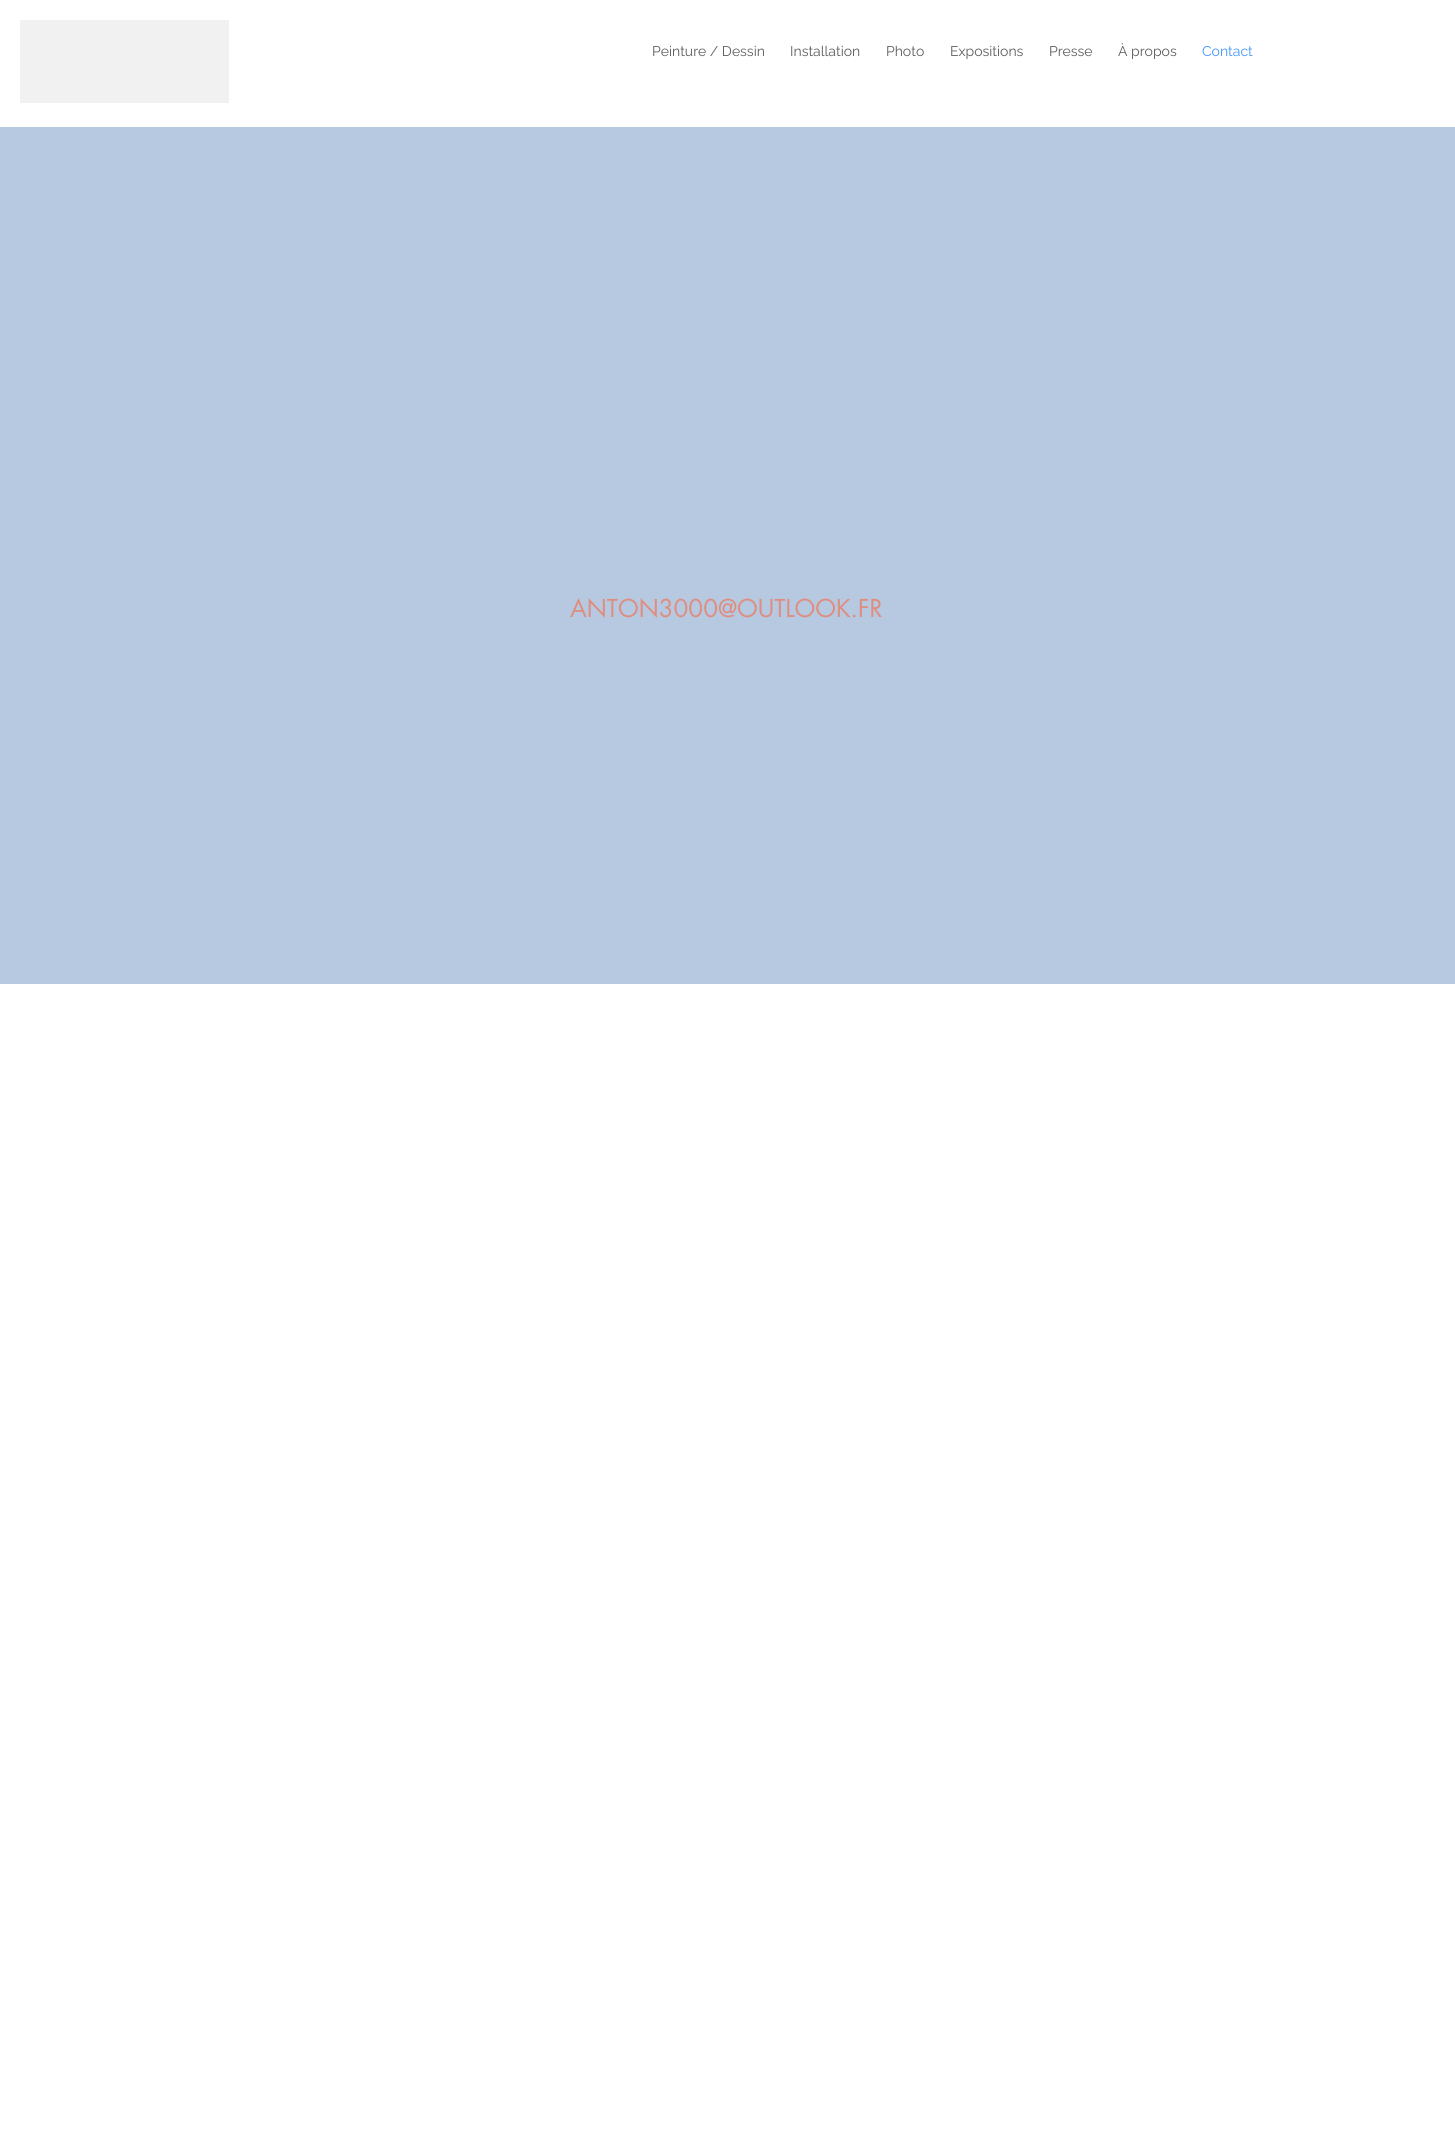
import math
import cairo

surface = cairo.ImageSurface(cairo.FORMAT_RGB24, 1455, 2140)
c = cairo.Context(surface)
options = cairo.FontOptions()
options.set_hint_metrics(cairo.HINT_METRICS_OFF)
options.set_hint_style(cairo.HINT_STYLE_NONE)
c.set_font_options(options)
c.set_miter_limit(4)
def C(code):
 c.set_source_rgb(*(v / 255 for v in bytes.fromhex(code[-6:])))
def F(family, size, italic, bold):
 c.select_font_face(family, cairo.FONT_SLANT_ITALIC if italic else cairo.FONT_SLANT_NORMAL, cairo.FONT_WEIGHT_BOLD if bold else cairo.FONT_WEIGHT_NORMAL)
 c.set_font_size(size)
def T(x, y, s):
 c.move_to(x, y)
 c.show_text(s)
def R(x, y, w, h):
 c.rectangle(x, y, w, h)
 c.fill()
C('ffffff')
c.paint()
C('f1f1f1')
R(20,20,209,83)
F('Raleway',14,0,0)
C('5e5d5d')
T(652,56,'Peinture / Dessin')
T(790,56,'Installation')
T(886,56,'Photo')
T(950,56,'Expositions')
T(1049,56,'Presse')
T(1118,56,'À propos')
C('4595f7')
T(1202,56,'Contact')
C('b6c9e0')
R(0,127,1455,857)
F('futura',24,0,0)
C('df8d7f')
T(570,617,'ANTON3000@OUTLOOK.FR')
surface.write_to_png('o.png')
